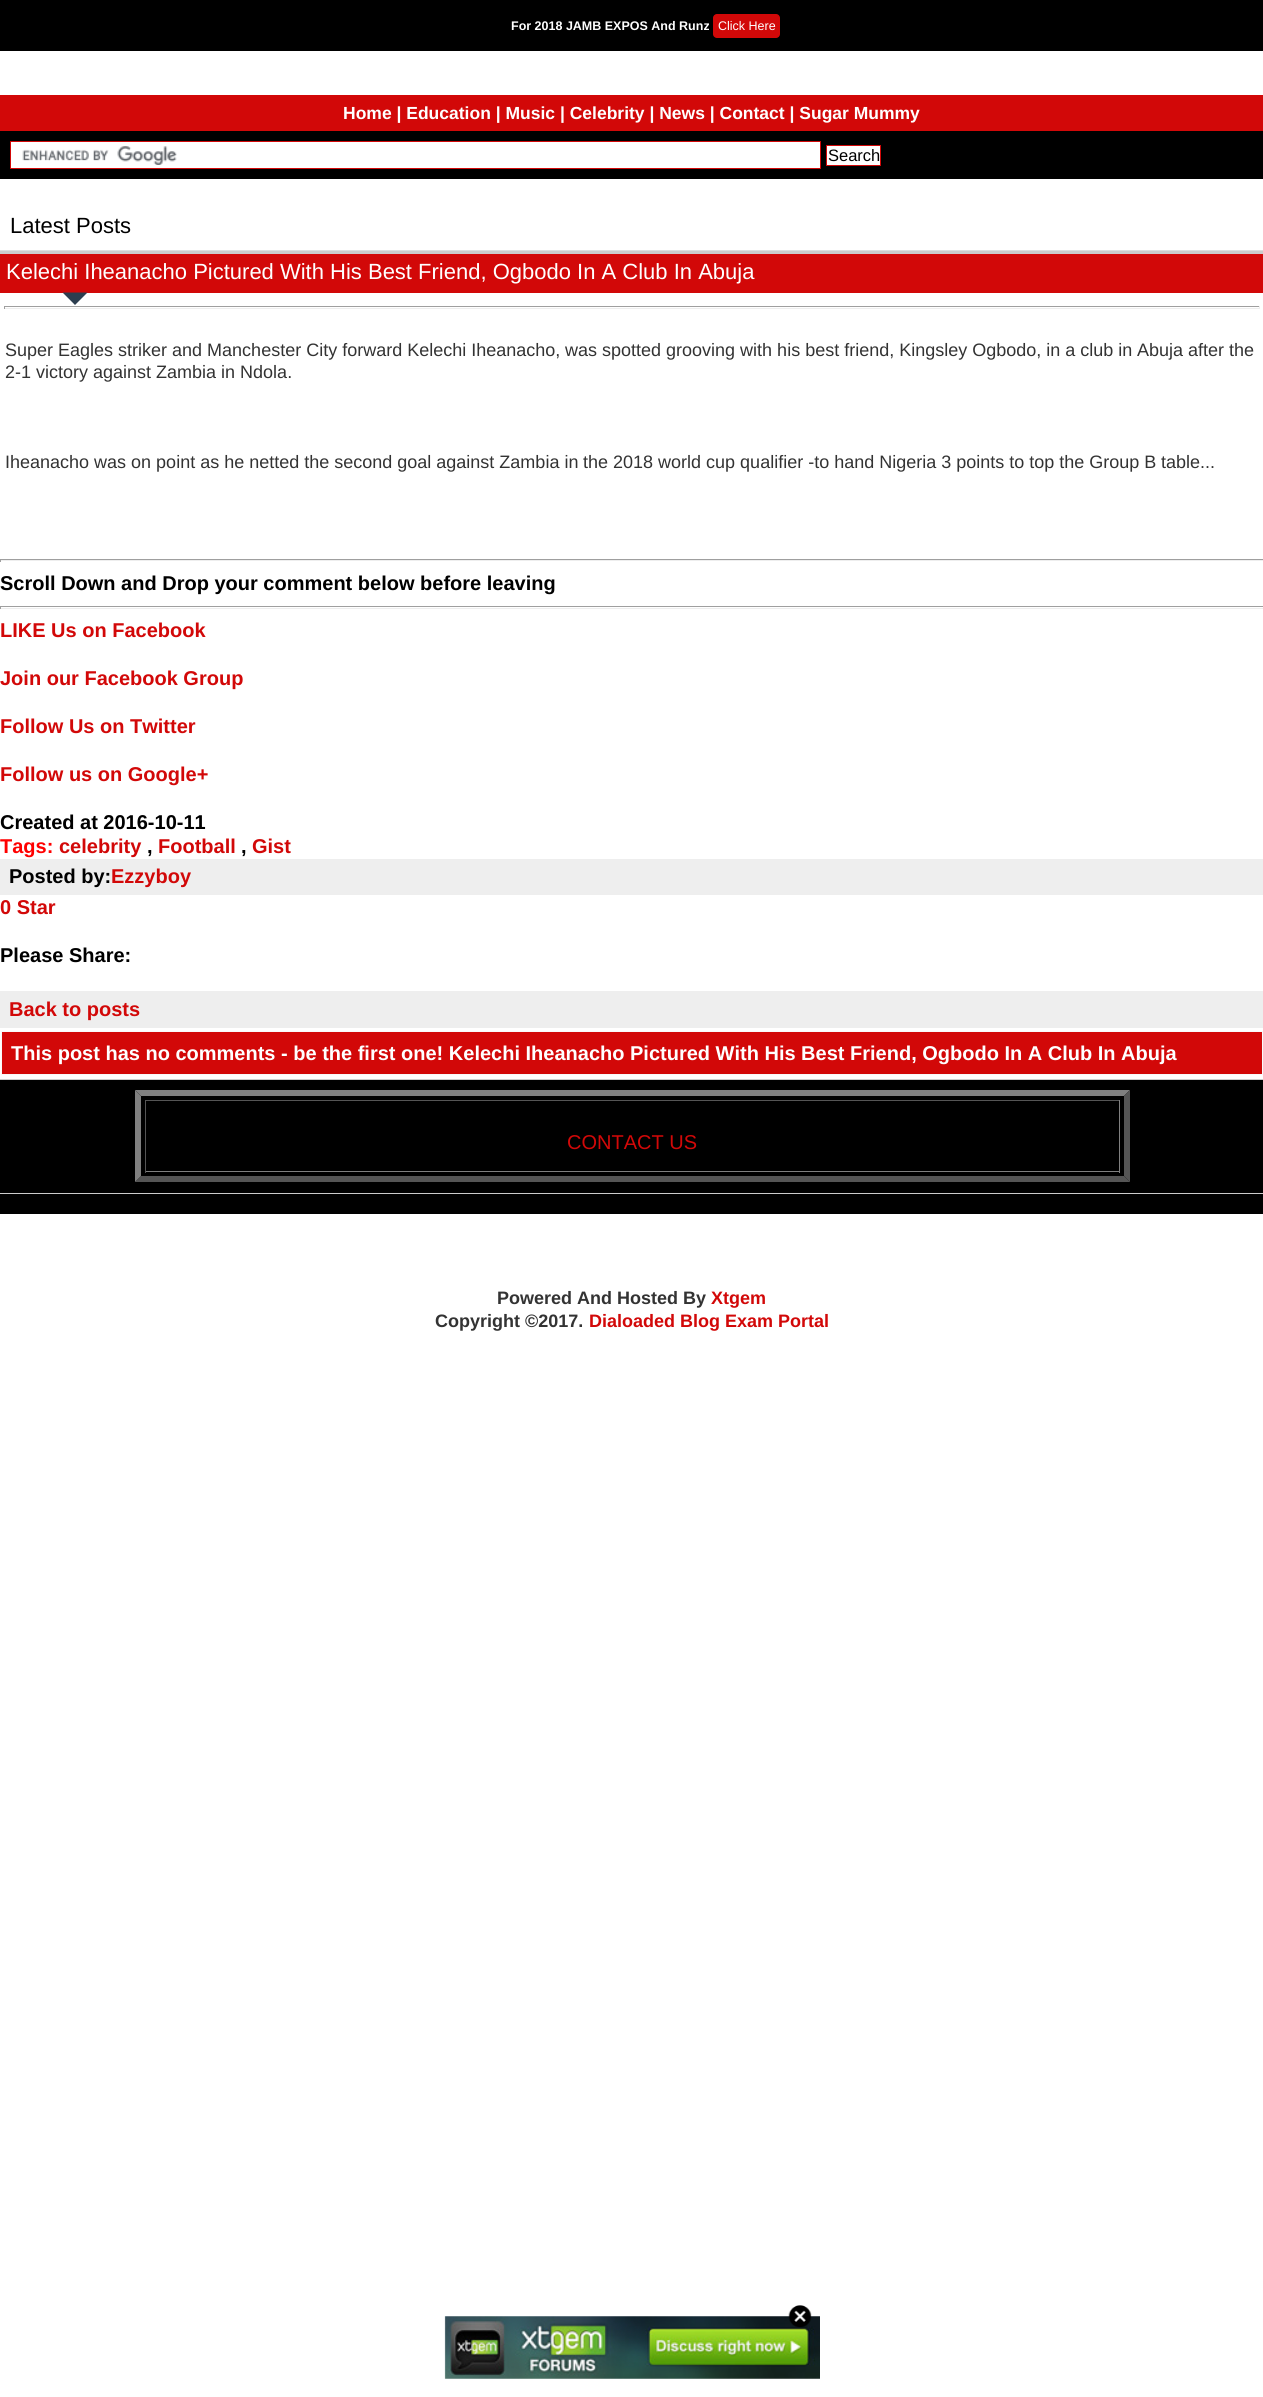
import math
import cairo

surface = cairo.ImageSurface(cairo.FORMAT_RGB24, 1263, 2397)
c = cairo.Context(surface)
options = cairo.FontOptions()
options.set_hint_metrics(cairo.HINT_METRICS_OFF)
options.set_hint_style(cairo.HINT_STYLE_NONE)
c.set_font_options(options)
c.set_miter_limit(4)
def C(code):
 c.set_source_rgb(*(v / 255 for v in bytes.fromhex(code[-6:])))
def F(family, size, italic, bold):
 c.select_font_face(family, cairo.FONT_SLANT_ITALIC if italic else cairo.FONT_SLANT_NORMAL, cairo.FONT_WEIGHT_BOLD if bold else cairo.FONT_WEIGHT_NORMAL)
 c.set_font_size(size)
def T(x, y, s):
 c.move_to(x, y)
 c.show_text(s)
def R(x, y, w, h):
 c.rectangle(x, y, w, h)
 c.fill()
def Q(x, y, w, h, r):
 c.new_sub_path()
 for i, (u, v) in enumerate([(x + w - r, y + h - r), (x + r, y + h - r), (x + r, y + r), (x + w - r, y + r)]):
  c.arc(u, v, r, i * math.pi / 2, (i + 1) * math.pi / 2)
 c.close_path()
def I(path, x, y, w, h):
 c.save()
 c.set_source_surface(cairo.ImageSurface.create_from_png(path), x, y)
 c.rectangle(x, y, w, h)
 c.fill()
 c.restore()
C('ffffff')
c.paint()
C('000000')
R(0,0,1263,51)
F('Liberation Sans',12.5,0,1)
C('ffffff')
T(511,30,'For 2018 JAMB EXPOS And Runz')
C('d20808')
Q(713,14,67,24,4)
c.fill()
F('Liberation Sans',12.5,0,0)
C('ffffff')
T(718,30,'Click Here')
C('d20808')
R(0,95,1263,36)
F('Liberation Sans',17.5,0,1)
C('ffffff')
T(343,119,'Home | Education | Music | Celebrity | News | Contact | Sugar Mummy')
C('000000')
R(0,131,1263,48)
C('ffffff')
R(11,142,809,26)
I('1.png',22,146,155,19)
c.rectangle(10.5,141.5,810,27)
C('d20808')
c.set_line_width(1)
c.stroke()
C('ffffff')
c.rectangle(826.5,145.5,54,20)
c.fill_preserve()
C('d20808')
c.stroke()
F('Liberation Sans',16.5,0,0)
C('000000')
T(828,161,'Search')
C('dddddd')
R(0,250,1263,1)
F('Liberation Sans',22,0,0)
C('000000')
T(10,233,'Latest Posts')
C('cccccc')
R(0,251,1263,3)
C('d20808')
R(0,254,1263,39)
C('ffffff')
T(6,279,'Kelechi Iheanacho Pictured With His Best Friend, Ogbodo In A Club In Abuja')
C('2c3e50')
c.new_path()
c.move_to(62.5,292.5)
c.line_to(87.5,292.5)
c.line_to(75,305)
c.close_path()
c.fill()
C('9f9f9f')
R(4,306,1256,1)
C('eeeeee')
R(1259,306,1,3)
R(4,308,1256,1)
C('9f9f9f')
R(4,306,1,3)
F('Liberation Sans',18,0,0)
C('333333')
T(5,356,'Super Eagles striker and Manchester City forward Kelechi Iheanacho,')
T(565,356,'was spotted grooving with his best friend, Kingsley Ogbodo, in a club in')
T(1137,356,'Abuja after the')
T(5,378,'2-1 victory against Zambia in Ndola.')
T(5,468,'Iheanacho was on point as he netted the second goal against Zambia in')
T(583,468,'the 2018 world cup qualifier -to hand Nigeria 3 points to top the Group B')
T(1161,468,'table...')
C('9f9f9f')
R(0,559,1263,1)
C('eeeeee')
R(0,560,1263,1)
C('9f9f9f')
R(0,559,1,3)
F('Liberation Sans',20,0,1)
C('000000')
T(0,590,'Scroll Down and Drop your comment below before leaving')
C('9f9f9f')
R(0,606,1263,1)
C('eeeeee')
R(0,608,1263,1)
C('9f9f9f')
R(0,606,1,3)
C('d20808')
T(0,637,'LIKE Us on Facebook')
T(0,685,'Join our Facebook Group')
T(0,733,'Follow Us on Twitter')
T(0,781,'Follow us on Google+')
C('000000')
T(0,829,'Created at 2016-10-11')
C('ff0000')
T(0,853,'Tags:')
C('d20808')
T(59,853,'celebrity')
C('000000')
T(147,853,',')
C('d20808')
T(158,853,'Football')
C('000000')
T(241,853,',')
C('d20808')
T(252,853,'Gist')
C('eeeeee')
R(0,859,1263,36)
C('000000')
T(9,883,'Posted by:')
C('d20808')
T(111,883,'Ezzyboy')
T(0,914,'0 Star')
C('000000')
T(0,962,'Please Share:')
C('eeeeee')
R(0,991,1263,37)
C('d20808')
T(9,1016,'Back to posts')
c.rectangle(1.5,1031.5,1261,43)
c.fill_preserve()
C('fafafa')
c.stroke()
C('ffffff')
T(11,1060,'This post has no comments - be the first one! Kelechi Iheanacho Pictured With His Best Friend, Ogbodo In A Club In Abuja')
C('000000')
R(0,1080,1263,113)
C('cccccc')
R(0,1079,1263,1)
C('808080')
c.new_path()
c.move_to(135,1090)
c.line_to(1130,1090)
c.line_to(1124,1096)
c.line_to(141,1096)
c.close_path()
c.fill()
C('555555')
c.new_path()
c.move_to(1130,1090)
c.line_to(1130,1182)
c.line_to(1124,1176)
c.line_to(1124,1096)
c.close_path()
c.fill()
c.new_path()
c.move_to(1130,1182)
c.line_to(135,1182)
c.line_to(141,1176)
c.line_to(1124,1176)
c.close_path()
c.fill()
C('808080')
c.new_path()
c.move_to(135,1182)
c.line_to(135,1090)
c.line_to(141,1096)
c.line_to(141,1176)
c.close_path()
c.fill()
C('555555')
R(145,1100,975,1)
C('808080')
R(1119,1100,1,73)
R(145,1171,975,1)
C('555555')
R(145,1100,1,73)
F('Liberation Sans',20,0,0)
C('d20808')
T(567,1149,'CONTACT US')
C('000000')
R(0,1194,1263,20)
C('cccccc')
R(0,1193,1263,1)
F('Liberation Sans',18,0,1)
C('333333')
T(497,1304,'Powered And Hosted By')
C('d20808')
T(711,1304,'Xtgem')
C('333333')
T(435,1327,'Copyright ©2017.')
C('d20808')
T(589,1327,'Dialoaded Blog Exam Portal')
I('3.png',444,2316,376,63)
I('2.png',788,2305,24,23)
surface.write_to_png('o.png')
